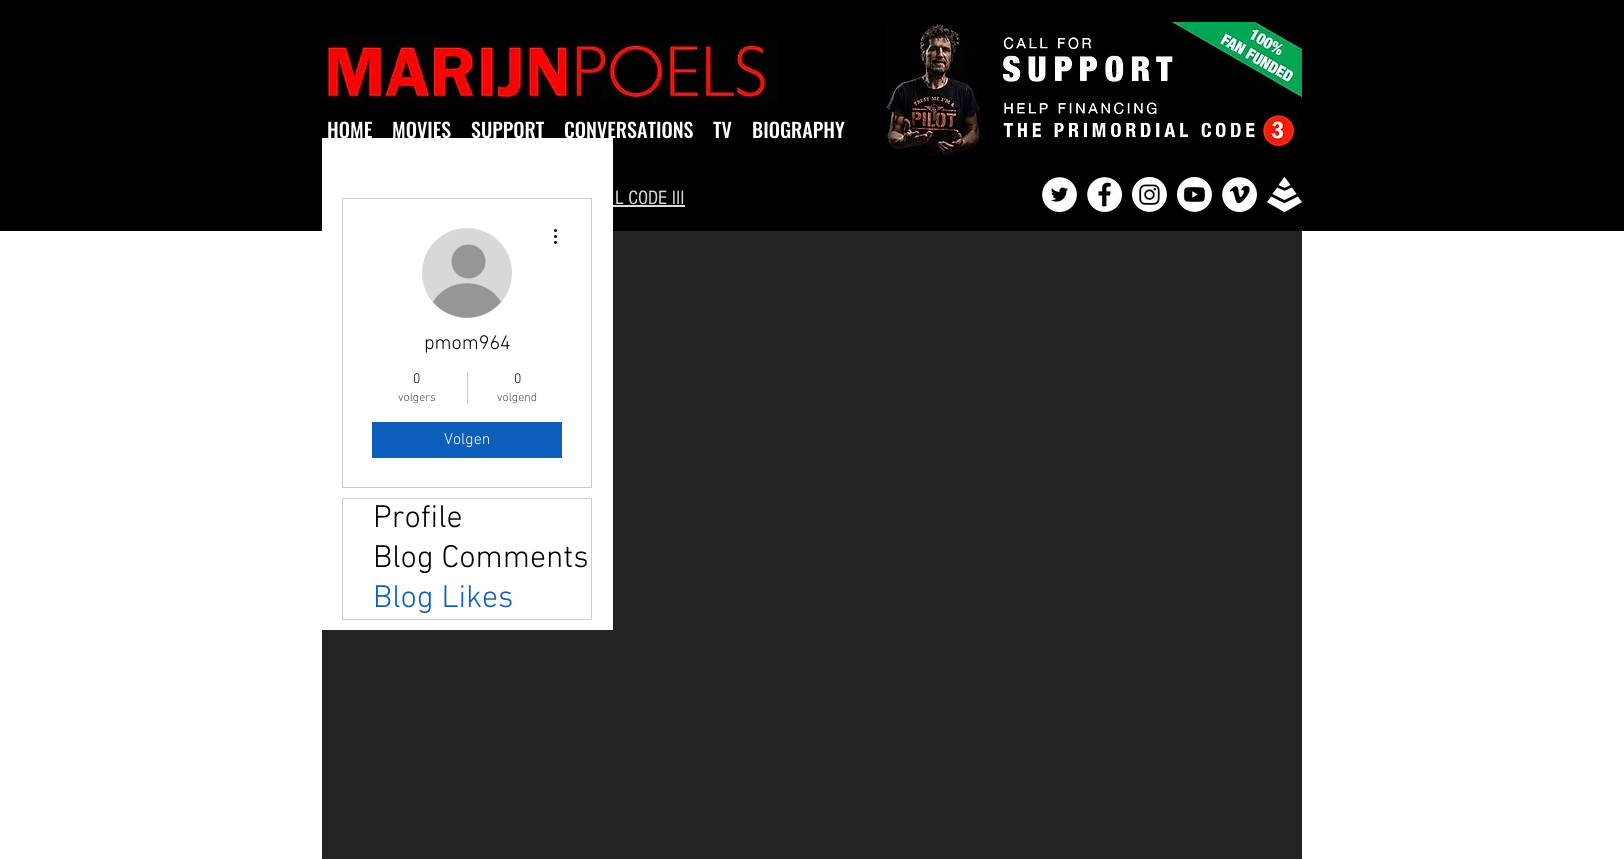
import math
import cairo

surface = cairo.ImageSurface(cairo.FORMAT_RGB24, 1624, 859)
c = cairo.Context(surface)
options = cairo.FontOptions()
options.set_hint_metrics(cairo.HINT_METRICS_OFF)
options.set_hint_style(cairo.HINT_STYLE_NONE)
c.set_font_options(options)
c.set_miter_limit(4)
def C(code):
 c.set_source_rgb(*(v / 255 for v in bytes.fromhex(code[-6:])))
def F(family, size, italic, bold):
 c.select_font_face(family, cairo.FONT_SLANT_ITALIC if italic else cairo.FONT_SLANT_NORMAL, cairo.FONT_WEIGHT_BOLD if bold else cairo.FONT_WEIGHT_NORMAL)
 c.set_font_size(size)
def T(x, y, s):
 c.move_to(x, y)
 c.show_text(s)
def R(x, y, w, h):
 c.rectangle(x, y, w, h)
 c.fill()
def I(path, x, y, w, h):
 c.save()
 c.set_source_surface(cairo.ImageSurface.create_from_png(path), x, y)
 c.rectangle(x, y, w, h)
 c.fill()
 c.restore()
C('ffffff')
c.paint()
C('000000')
R(0,0,1624,231)
I('1.png',322,35,456,71)
I('2.png',884,22,418,134)
F('Oswald Medium',20,0,0)
C('ffffff')
T(327,138,'HOME')
T(392,138,'MOVIES')
T(471,138,'SUPPORT')
T(564,138,'CONVERSATIONS')
T(713,138,'TV')
T(752,138,'BIOGRAPHY')
F('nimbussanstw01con',20,0,0)
C('dbdbdb')
T(615,204,'L CODE III')
R(613,205,72,2)
I('3.png',1042,177,35,35)
I('4.png',1087,177,35,35)
I('5.png',1132,177,35,35)
I('6.png',1177,177,35,35)
I('7.png',1222,177,35,35)
I('8.png',1267,177,35,35)
C('232323')
R(322,231,980,628)
C('ffffff')
R(322,138,291,492)
c.rectangle(342.5,198.5,249,289)
C('cccccc')
c.set_line_width(1)
c.stroke()
C('d8d8d8')
c.arc(467,273,45,0,2 * math.pi)
c.fill()
C('969696')
c.arc(468.5,261.5,17,0,2 * math.pi)
c.fill()
c.new_path()
c.move_to(501,302)
c.curve_to(483,323,451,323,433,302)
c.curve_to(448,277,486,277,501,302)
c.close_path()
c.fill()
I('9.png',554,229,3,15)
F('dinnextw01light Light',20,0,0)
C('000000')
T(424,349,'pmom964')
F('dinnextw01light Light',14,0,0)
T(413,383,'0')
F('dinnextw01light Light',12,0,0)
C('4d4d4d')
T(398,401,'volgers')
C('cccccc')
R(467,372,1,32)
F('dinnextw01light Light',14,0,0)
C('000000')
T(514,383,'0')
F('dinnextw01light Light',12,0,0)
C('4d4d4d')
T(497,401,'volgend')
C('0d5eba')
R(372,422,190,36)
F('dinnextw01light Light',16,0,0)
C('ffffff')
T(444,444,'Volgen')
c.rectangle(342.5,498.5,249,121)
C('cccccc')
c.stroke()
F('dinnextw01light Light',32,0,0)
C('000000')
T(373,527,'Profile')
T(373,567,'Blog Comments')
C('0d5eba')
T(373,607,'Blog Likes')
surface.write_to_png('o.png')
